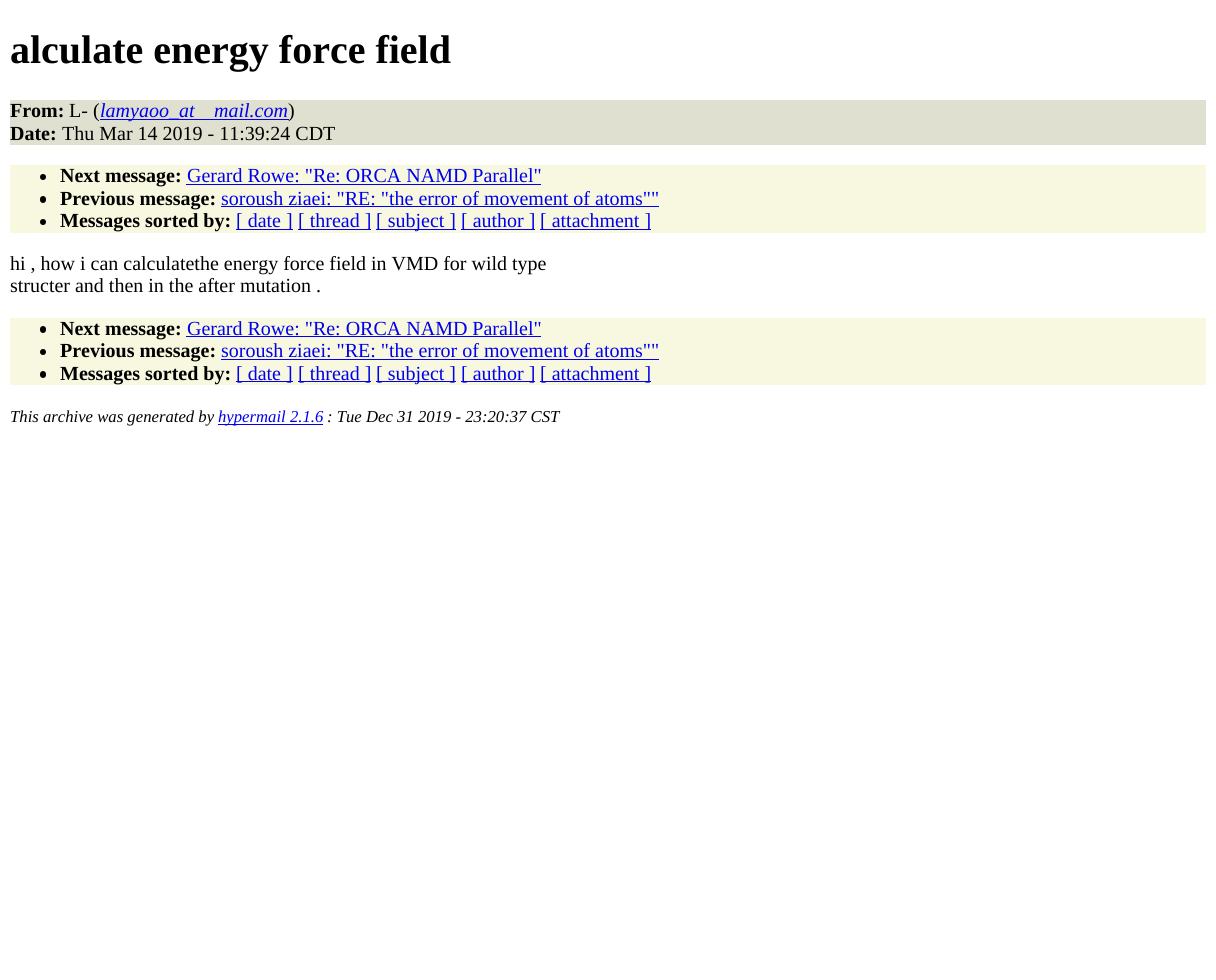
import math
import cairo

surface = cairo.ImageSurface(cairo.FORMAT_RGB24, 1216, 980)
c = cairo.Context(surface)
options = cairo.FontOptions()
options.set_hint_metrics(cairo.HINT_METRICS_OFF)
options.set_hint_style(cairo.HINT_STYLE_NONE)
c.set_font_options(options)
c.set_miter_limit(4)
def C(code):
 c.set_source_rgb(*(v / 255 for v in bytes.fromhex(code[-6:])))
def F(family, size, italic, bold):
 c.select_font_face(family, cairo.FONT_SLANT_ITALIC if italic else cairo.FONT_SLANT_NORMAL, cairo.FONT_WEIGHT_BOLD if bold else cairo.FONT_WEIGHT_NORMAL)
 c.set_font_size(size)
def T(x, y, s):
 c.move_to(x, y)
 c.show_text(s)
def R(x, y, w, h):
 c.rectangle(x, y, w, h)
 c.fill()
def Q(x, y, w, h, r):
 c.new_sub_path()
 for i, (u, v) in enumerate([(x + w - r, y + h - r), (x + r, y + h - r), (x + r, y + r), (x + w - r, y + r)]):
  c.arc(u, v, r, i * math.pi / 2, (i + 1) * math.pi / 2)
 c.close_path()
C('ffffff')
c.paint()
F('Liberation Serif',40,0,1)
C('000000')
T(10,63,'alculate energy force field')
C('e0e0d0')
R(10,100,1196,45)
F('Liberation Serif',20,0,1)
C('000000')
T(10,117,'From:')
F('Liberation Serif',20,0,0)
T(69,117,'L- (')
C('0000ee')
R(100,119,189,1)
F('Liberation Serif',20,1,0)
T(100,117,'lamyaoo_at')
T(214,117,'mail.com')
F('Liberation Serif',20,0,0)
C('000000')
T(288,117,')')
F('Liberation Serif',20,0,1)
T(10,140,'Date:')
F('Liberation Serif',20,0,0)
T(62,140,'Thu Mar 14 2019 - 11:39:24 CDT')
C('f8f8e0')
R(10,165,1196,68)
C('000000')
c.new_path()
c.arc(43,177,3,0,2 * math.pi)
c.fill()
F('Liberation Serif',20,0,1)
T(60,182,'Next message:')
F('Liberation Serif',20,0,0)
C('0000ee')
T(187,182,'Gerard Rowe: "Re: ORCA NAMD Parallel"')
R(186,184,355,1)
C('000000')
Q(40,196,6,7,3)
c.fill()
F('Liberation Serif',20,0,1)
T(60,205,'Previous message:')
F('Liberation Serif',20,0,0)
C('0000ee')
T(221,205,'soroush ziaei: "RE: "the error of movement of atoms""')
R(221,206,438,1)
C('000000')
c.new_path()
c.arc(43,222,3,0,2 * math.pi)
c.fill()
F('Liberation Serif',20,0,1)
T(60,227,'Messages sorted by:')
C('0000ee')
R(236,229,57,1)
F('Liberation Serif',20,0,0)
T(236,227,'[ date ]')
R(298,229,73,1)
T(298,227,'[ thread ]')
R(376,229,80,1)
T(376,227,'[ subject ]')
R(461,229,74,1)
T(461,227,'[ author ]')
R(540,229,111,1)
T(540,227,'[ attachment ]')
C('000000')
T(10,270,'hi , how i can calculatethe energy force field in VMD for wild type')
T(10,292,'structer and then in the after mutation .')
C('f8f8e0')
R(10,318,1196,67)
C('000000')
Q(40,326,6,7,3)
c.fill()
F('Liberation Serif',20,0,1)
T(60,335,'Next message:')
F('Liberation Serif',20,0,0)
C('0000ee')
T(187,335,'Gerard Rowe: "Re: ORCA NAMD Parallel"')
R(186,336,355,1)
C('000000')
c.new_path()
c.arc(43,352,3,0,2 * math.pi)
c.fill()
F('Liberation Serif',20,0,1)
T(60,357,'Previous message:')
F('Liberation Serif',20,0,0)
C('0000ee')
T(221,357,'soroush ziaei: "RE: "the error of movement of atoms""')
R(221,359,438,1)
C('000000')
Q(40,371,6,7,3)
c.fill()
F('Liberation Serif',20,0,1)
T(60,380,'Messages sorted by:')
C('0000ee')
R(236,381,57,1)
F('Liberation Serif',20,0,0)
T(236,380,'[ date ]')
R(298,381,73,1)
T(298,380,'[ thread ]')
R(376,381,80,1)
T(376,380,'[ subject ]')
R(461,381,74,1)
T(461,380,'[ author ]')
R(540,381,111,1)
T(540,380,'[ attachment ]')
F('Liberation Serif',16.7,1,0)
C('000000')
T(10,422,'This archive was generated by')
C('0000ee')
R(218,424,105,1)
T(218,422,'hypermail 2.1.6')
C('000000')
T(327,422,': Tue Dec 31 2019 - 23:20:37 CST')
surface.write_to_png('o.png')
